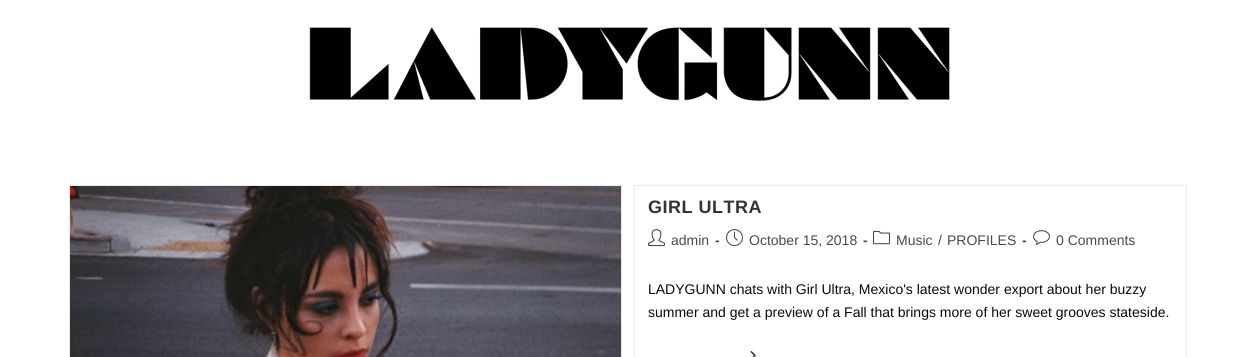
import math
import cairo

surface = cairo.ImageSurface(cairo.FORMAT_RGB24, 1256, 357)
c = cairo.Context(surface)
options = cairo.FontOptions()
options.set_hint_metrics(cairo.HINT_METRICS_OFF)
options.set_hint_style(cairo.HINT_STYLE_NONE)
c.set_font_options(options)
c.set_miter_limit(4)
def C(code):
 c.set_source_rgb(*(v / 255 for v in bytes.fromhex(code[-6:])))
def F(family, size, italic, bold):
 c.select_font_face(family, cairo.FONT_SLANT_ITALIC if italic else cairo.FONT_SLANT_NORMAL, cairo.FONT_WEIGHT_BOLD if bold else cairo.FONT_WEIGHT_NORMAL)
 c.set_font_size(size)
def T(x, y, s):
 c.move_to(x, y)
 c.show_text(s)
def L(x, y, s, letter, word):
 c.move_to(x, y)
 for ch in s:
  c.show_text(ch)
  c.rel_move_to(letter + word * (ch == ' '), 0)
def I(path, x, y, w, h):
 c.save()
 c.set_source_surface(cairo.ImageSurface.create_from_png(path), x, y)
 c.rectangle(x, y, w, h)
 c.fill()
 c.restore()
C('ffffff')
c.paint()
I('1.png',309,27,641,74)
c.rectangle(69.5,185.5,552,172)
C('e9e9e9')
c.set_line_width(1)
c.stroke()
I('2.png',70,186,551,171)
c.rectangle(634.5,185.5,552,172)
c.stroke()
F('Liberation Sans',18,0,1)
C('333333')
L(648,213,'GIRL ULTRA',.5,0)
I('3.png',648,229,17,18)
F('Liberation Sans',14,0,0)
C('4a4a4a')
T(671,245,'admin')
F('Liberation Sans',14,0,1)
T(715,245,'-')
I('4.png',726,229,17,18)
F('Liberation Sans',14,0,0)
T(749,245,'October 15, 2018')
F('Liberation Sans',14,0,1)
T(863,245,'-')
I('5.png',873,230,17,15)
F('Liberation Sans',14,0,0)
T(896,245,'Music')
T(938,245,'/')
T(947,245,'PROFILES')
F('Liberation Sans',14,0,1)
T(1022,245,'-')
I('6.png',1033,230,17,15)
F('Liberation Sans',14,0,0)
T(1056,245,'0 Comments')
C('0a0a0a')
T(648,294,'LADYGUNN chats with Girl Ultra, Mexico\'s latest wonder export about her buzzy')
T(648,317,'summer and get a preview of a Fall that brings more of her sweet grooves stateside.')
I('7.png',750,351,6,6)
surface.write_to_png('o.png')
